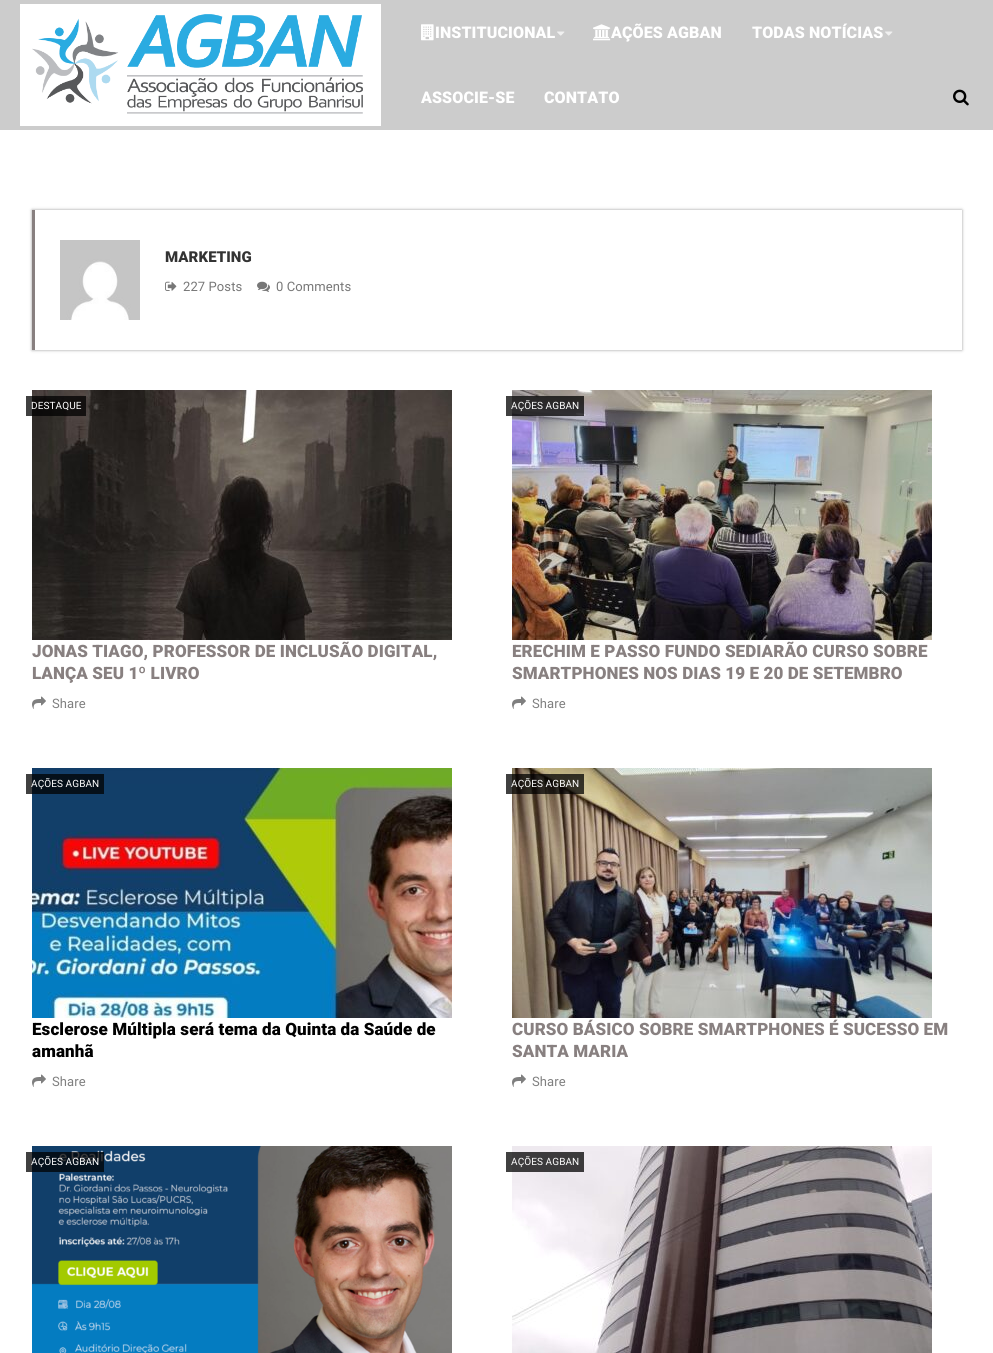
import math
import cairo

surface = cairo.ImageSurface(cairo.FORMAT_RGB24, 993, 1353)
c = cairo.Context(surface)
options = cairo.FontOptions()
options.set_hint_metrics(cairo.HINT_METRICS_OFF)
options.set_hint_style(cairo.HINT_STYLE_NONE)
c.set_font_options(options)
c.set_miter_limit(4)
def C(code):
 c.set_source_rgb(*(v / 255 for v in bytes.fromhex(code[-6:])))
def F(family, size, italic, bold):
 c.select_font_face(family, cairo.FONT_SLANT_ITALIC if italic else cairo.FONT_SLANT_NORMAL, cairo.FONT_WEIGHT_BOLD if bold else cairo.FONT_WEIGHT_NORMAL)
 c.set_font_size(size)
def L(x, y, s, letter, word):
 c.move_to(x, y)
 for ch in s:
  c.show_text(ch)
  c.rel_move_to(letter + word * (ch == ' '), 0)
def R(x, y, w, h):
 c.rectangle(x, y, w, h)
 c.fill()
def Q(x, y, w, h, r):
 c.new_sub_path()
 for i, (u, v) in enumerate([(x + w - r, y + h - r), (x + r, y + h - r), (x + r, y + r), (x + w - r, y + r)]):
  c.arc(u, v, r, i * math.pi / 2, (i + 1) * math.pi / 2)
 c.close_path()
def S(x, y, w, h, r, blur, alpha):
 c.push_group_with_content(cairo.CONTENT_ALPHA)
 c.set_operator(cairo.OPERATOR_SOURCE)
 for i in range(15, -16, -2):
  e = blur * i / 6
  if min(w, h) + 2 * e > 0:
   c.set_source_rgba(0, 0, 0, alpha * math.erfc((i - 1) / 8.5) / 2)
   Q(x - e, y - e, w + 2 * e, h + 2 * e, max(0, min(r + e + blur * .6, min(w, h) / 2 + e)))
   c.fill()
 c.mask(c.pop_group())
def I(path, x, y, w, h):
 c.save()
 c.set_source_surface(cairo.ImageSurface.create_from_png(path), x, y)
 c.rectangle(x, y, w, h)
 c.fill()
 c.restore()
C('ffffff')
c.paint()
C('cccccc')
R(0,0,993,130)
I('1.png',20,4,361,122)
I('2.png',421,24,13,17)
F('Roboto Black',16,0,0)
C('ffffff')
L(435,38,'INSTITUCIONAL',.1,0)
I('3.png',557,31,8,5)
I('4.png',593,24,18,17)
L(611,38,'AÇÕES AGBAN',.1,0)
L(752,38,'TODAS NOTÍCIAS',.1,0)
I('3.png',885,31,8,5)
L(421,103,'ASSOCIE-SE',.1,0)
L(544,103,'CONTATO',.1,0)
I('5.png',953,89,16,17)
c.save()
c.set_fill_rule(cairo.FILL_RULE_EVEN_ODD)
c.new_path()
c.move_to(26,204)
c.line_to(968,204)
c.line_to(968,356)
c.line_to(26,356)
c.close_path()
c.move_to(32,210)
c.line_to(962,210)
c.line_to(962,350)
c.line_to(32,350)
c.close_path()
c.clip()
C('000000')
S(32,210,930,140,0,1.5,.4)
c.restore()
C('888080')
R(32,210,3,140)
I('6.png',60,240,80,80)
F('Roboto Black',15,0,0)
C('333333')
L(165,262,'MARKETING',.1,0)
I('7.png',165,281,12,10)
F('Roboto',13,0,0)
C('777777')
L(183,291,'227 Posts',.1,0)
I('8.png',257,281,13,11)
L(276,291,'0 Comments',.1,0)
I('9.png',32,390,420,250)
c.set_source_rgba(0,0,0,0.75)
R(26,396,60,20)
F('Roboto',10,0,0)
C('ffffff')
L(31,409,'DESTAQUE',.1,0)
F('Roboto Black',17,0,0)
C('888080')
L(32,657,'JONAS TIAGO, PROFESSOR DE INCLUSÃO DIGITAL,',.1,0)
L(32,679,'LANÇA SEU 1º LIVRO',.1,0)
I('10.png',32,696,14,13)
F('Roboto',13,0,0)
C('808080')
L(52,708,'Share',.1,0)
I('11.png',512,390,420,250)
c.set_source_rgba(0,0,0,0.75)
R(506,396,78,20)
F('Roboto',10,0,0)
C('ffffff')
L(511,409,'AÇÕES AGBAN',.1,0)
F('Roboto Black',17,0,0)
C('888080')
L(512,657,'ERECHIM E PASSO FUNDO SEDIARÃO CURSO SOBRE',.1,0)
L(512,679,'SMARTPHONES NOS DIAS 19 E 20 DE SETEMBRO',.1,0)
I('10.png',512,696,14,13)
F('Roboto',13,0,0)
C('808080')
L(532,708,'Share',.1,0)
I('12.png',32,768,420,250)
c.set_source_rgba(0,0,0,0.75)
R(26,774,78,20)
F('Roboto',10,0,0)
C('ffffff')
L(31,787,'AÇÕES AGBAN',.1,0)
F('Roboto Black',17,0,0)
C('000000')
L(32,1035,'Esclerose Múltipla será tema da Quinta da Saúde de',.1,0)
L(32,1057,'amanhã',.1,0)
I('10.png',32,1074,14,13)
F('Roboto',13,0,0)
C('808080')
L(52,1086,'Share',.1,0)
I('13.png',512,768,420,250)
c.set_source_rgba(0,0,0,0.75)
R(506,774,78,20)
F('Roboto',10,0,0)
C('ffffff')
L(511,787,'AÇÕES AGBAN',.1,0)
F('Roboto Black',17,0,0)
C('888080')
L(512,1035,'CURSO BÁSICO SOBRE SMARTPHONES É SUCESSO EM',.1,0)
L(512,1057,'SANTA MARIA',.1,0)
I('10.png',512,1074,14,13)
F('Roboto',13,0,0)
C('808080')
L(532,1086,'Share',.1,0)
I('14.png',32,1146,420,207)
c.set_source_rgba(0,0,0,0.75)
R(26,1152,78,20)
F('Roboto',10,0,0)
C('ffffff')
L(31,1165,'AÇÕES AGBAN',.1,0)
I('15.png',512,1146,420,207)
c.set_source_rgba(0,0,0,0.75)
R(506,1152,78,20)
C('ffffff')
L(511,1165,'AÇÕES AGBAN',.1,0)
surface.write_to_png('o.png')
